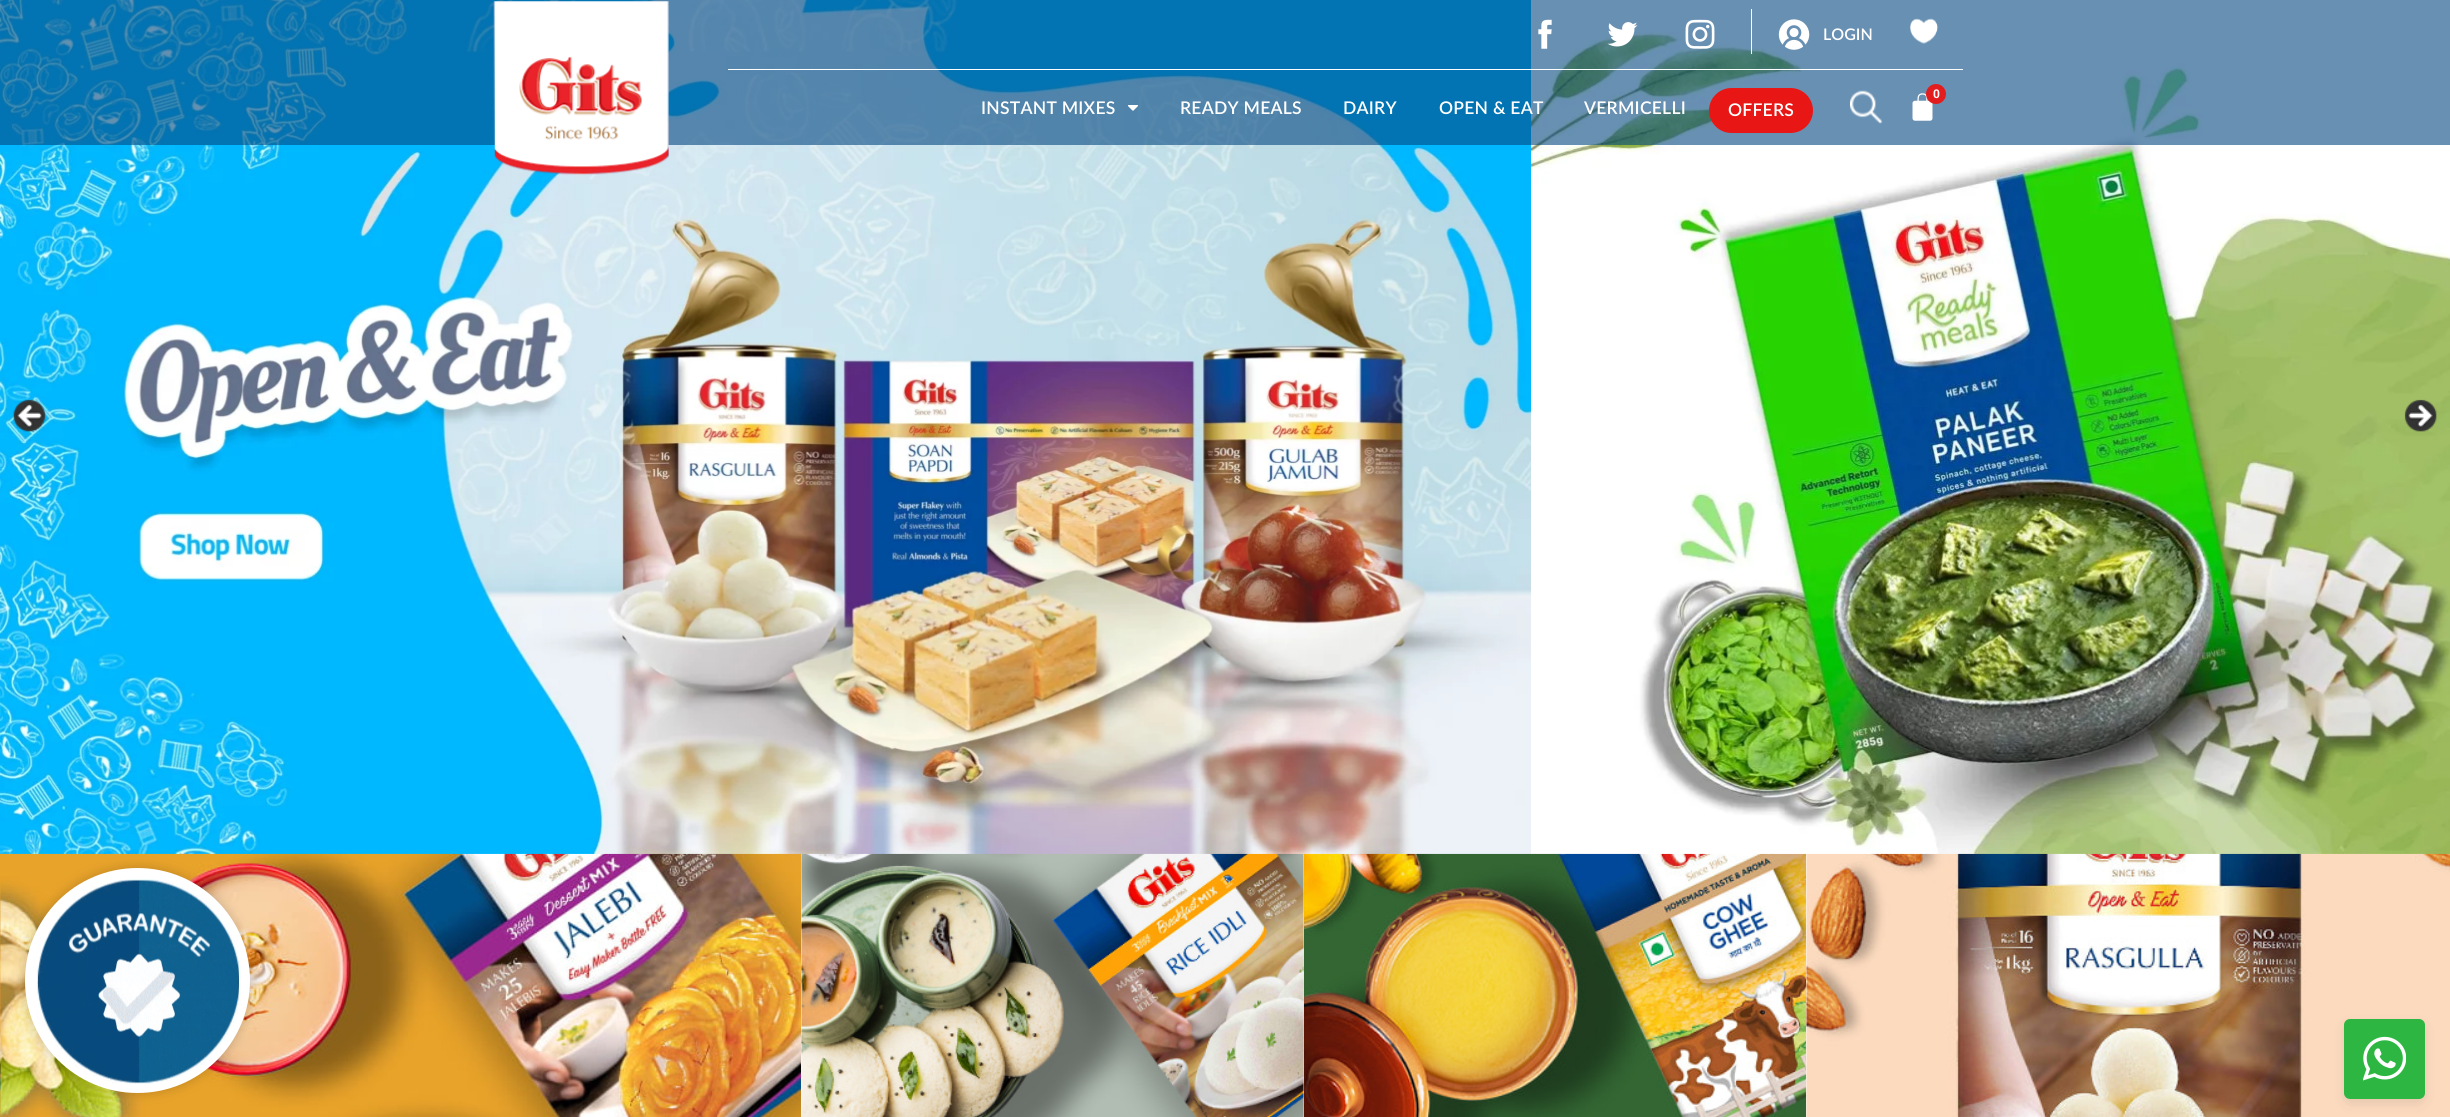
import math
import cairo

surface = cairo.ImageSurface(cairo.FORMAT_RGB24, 2450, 1117)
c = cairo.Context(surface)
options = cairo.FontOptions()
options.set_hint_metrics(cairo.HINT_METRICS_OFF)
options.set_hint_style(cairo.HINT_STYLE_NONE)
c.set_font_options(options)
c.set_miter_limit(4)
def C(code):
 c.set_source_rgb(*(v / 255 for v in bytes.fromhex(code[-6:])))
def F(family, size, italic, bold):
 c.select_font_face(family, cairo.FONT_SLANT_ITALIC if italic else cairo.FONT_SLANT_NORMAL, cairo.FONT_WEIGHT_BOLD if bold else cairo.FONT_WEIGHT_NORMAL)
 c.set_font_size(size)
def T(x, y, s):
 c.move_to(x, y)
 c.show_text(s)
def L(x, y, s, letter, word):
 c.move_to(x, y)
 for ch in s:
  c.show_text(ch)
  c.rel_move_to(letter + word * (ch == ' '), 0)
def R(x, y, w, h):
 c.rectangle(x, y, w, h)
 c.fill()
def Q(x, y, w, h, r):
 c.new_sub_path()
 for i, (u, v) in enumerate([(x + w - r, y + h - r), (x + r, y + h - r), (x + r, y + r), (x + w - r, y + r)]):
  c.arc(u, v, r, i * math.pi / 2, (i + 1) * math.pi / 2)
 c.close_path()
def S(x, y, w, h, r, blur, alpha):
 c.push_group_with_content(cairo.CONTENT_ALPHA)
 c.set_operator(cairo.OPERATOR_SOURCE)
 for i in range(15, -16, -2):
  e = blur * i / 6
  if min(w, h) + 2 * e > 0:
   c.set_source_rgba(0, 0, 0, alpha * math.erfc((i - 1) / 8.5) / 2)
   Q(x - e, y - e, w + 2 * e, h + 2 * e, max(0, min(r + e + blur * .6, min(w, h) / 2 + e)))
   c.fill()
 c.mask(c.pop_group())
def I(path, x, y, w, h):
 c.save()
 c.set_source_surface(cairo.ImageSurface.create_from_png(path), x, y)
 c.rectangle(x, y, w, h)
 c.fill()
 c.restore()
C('ffffff')
c.paint()
I('1.png',0,0,1531,854)
I('2.png',1531,0,919,854)
I('3.png',13,399,33,33)
I('4.png',2404,399,33,33)
I('6.png',0,853,802,264)
C('000000')
S(25,868,225,225,112.5,6,.2)
C('ffffff')
c.arc(137.5,980.5,112.5,0,2 * math.pi)
c.fill()
I('5.png',36,879,206,205)
I('7.png',801,853,503,264)
I('8.png',1303,853,504,264)
I('9.png',1806,853,644,264)
c.set_source_rgba(0.016,0.275,0.502,0.6)
R(0,0,2450,145)
I('10.png',493,1,176,174)
I('11.png',1538,19,14,30)
I('12.png',1607,22,31,25)
I('13.png',1685,19,30,30)
C('ffffff')
R(1751,9,1,45)
I('14.png',1778,19,32,31)
F('Lato SemiBold',16,0,0)
T(1823,40,'LOGIN')
I('15.png',1910,18,28,26)
C('fefefe')
R(728,69,1235,1)
F('Lato SemiBold',17.5,0,0)
C('ffffff')
L(981,114,'INSTANT MIXES',.25,0)
I('16.png',1127,105,11,6)
L(1180,114,'READY MEALS',.25,0)
L(1343,114,'DAIRY',.25,0)
L(1439,114,'OPEN & EAT',.25,0)
L(1584,114,'VERMICELLI',.25,0)
C('e81716')
Q(1709,88,104,45,22.5)
c.fill()
C('ffffff')
L(1728,116,'OFFERS',.25,0)
I('17.png',1850,90,33,34)
I('18.png',1912,93,21,28)
C('e31c1e')
c.arc(1936,94,10,0,2 * math.pi)
c.fill()
F('Roboto',12,0,1)
C('ffffff')
T(1933,98,'0')
C('202025')
S(2343,1023,83,82,8,5,.09)
C('2db742')
Q(2344,1019,81,80,6)
c.fill()
I('19.png',2363,1036,43,45)
surface.write_to_png('o.png')
